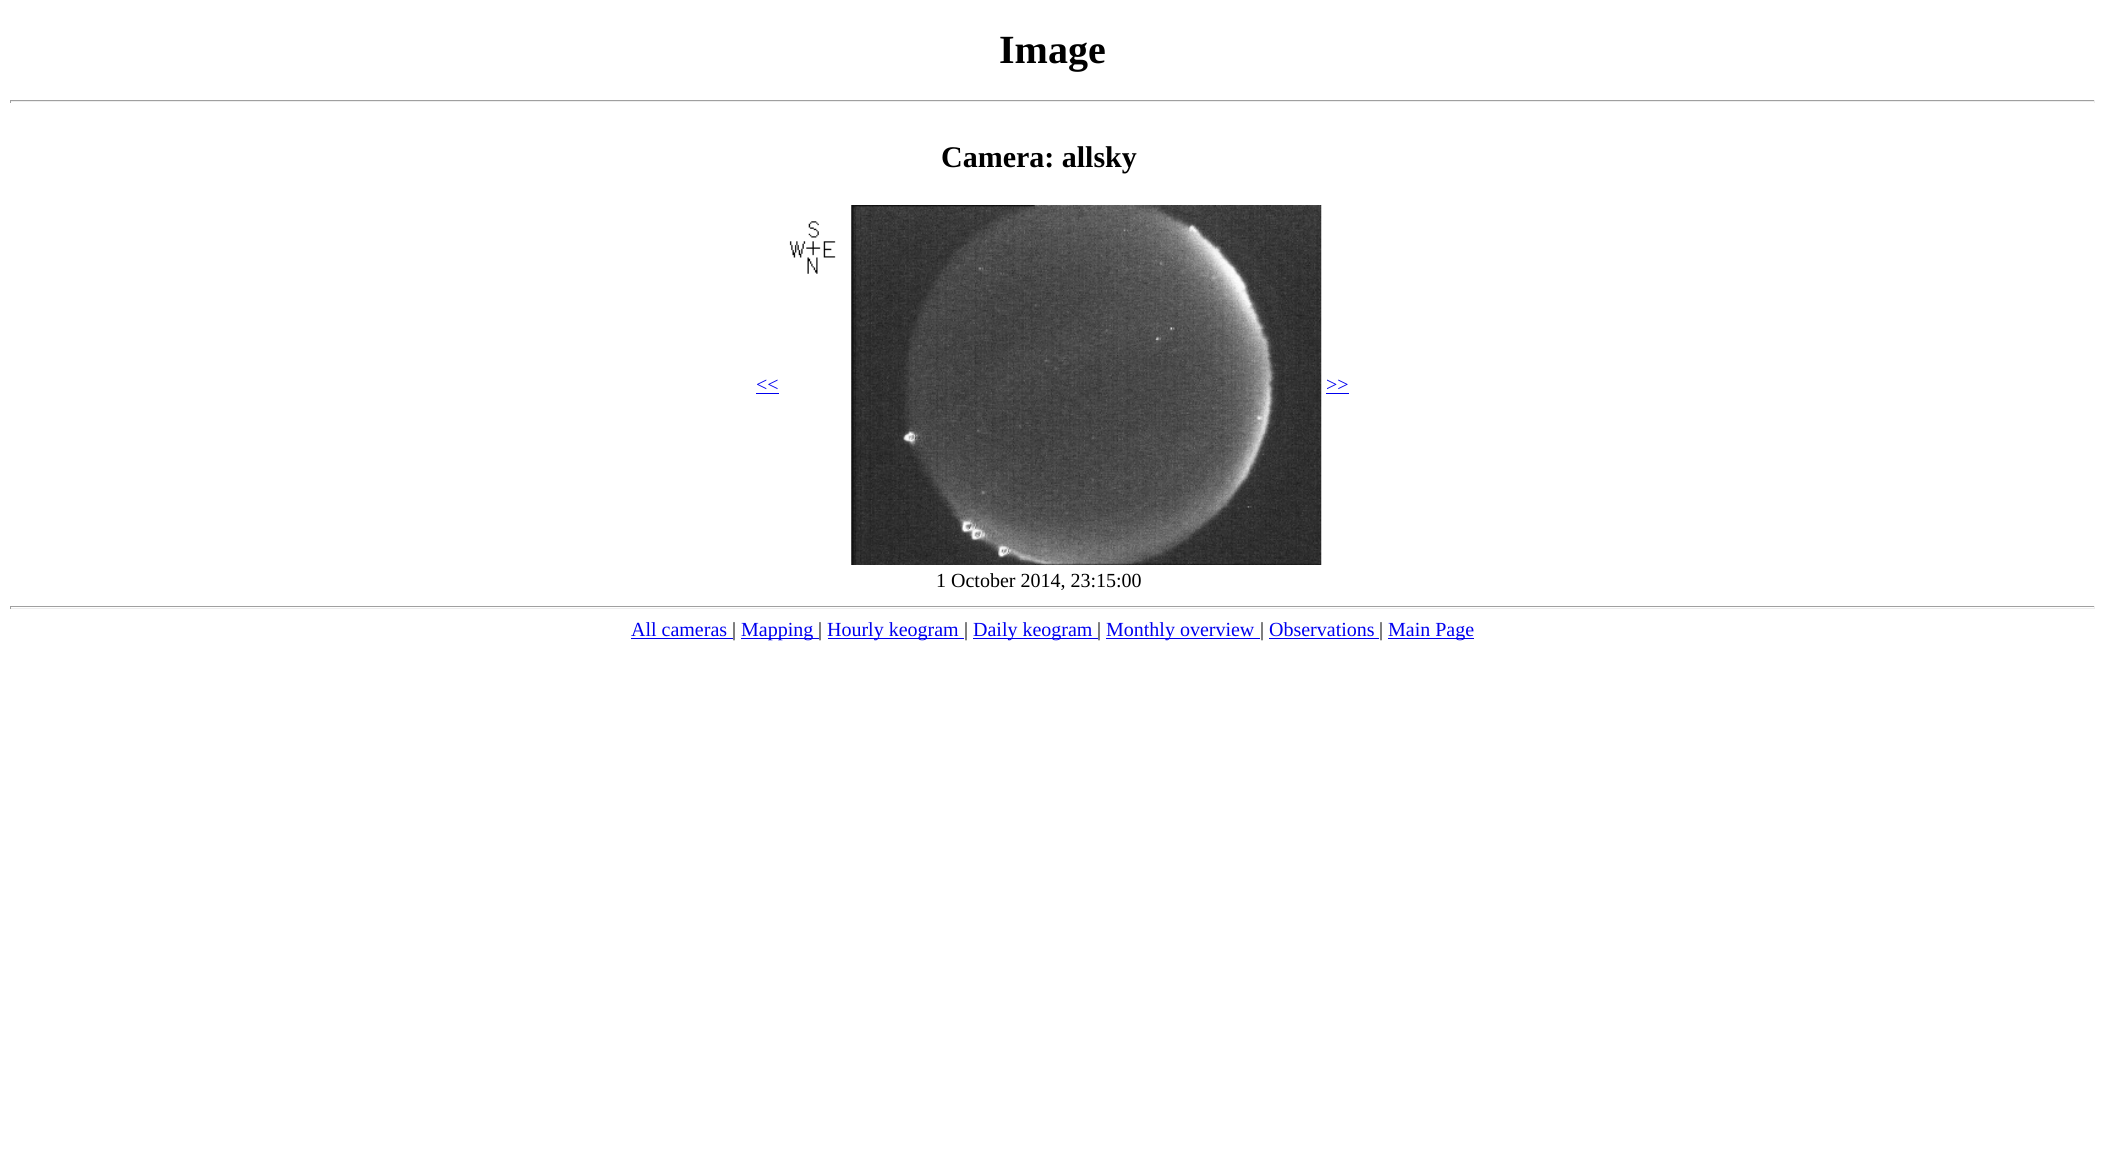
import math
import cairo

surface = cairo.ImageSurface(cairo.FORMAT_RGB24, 2104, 1171)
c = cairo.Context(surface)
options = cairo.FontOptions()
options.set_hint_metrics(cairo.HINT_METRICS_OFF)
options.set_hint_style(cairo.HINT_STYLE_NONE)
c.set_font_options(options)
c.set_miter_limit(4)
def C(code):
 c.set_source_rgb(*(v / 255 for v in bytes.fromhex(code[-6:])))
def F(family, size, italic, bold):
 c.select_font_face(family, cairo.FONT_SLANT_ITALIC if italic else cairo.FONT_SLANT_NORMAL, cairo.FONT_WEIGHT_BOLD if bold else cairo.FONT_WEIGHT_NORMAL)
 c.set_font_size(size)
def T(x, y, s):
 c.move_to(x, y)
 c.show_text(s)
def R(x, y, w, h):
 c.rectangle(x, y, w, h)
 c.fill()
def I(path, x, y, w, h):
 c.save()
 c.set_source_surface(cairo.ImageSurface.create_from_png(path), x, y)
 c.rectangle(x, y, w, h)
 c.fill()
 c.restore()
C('ffffff')
c.paint()
F('Liberation Serif',40,0,1)
C('000000')
T(999,63,'Image')
C('9f9f9f')
R(10,100,2085,1)
C('eeeeee')
R(2094,100,1,3)
R(10,101,2085,1)
C('9f9f9f')
R(10,100,1,3)
F('Liberation Serif',30,0,1)
C('000000')
T(941,167,'Camera: allsky')
I('1.png',789,221,47,53)
I('2.png',851,205,471,360)
F('Liberation Serif',20,0,0)
C('0000ee')
T(756,391,'<<')
R(756,393,23,1)
T(1326,391,'>>')
R(1326,393,23,1)
C('000000')
T(936,587,'1 October 2014, 23:15:00')
C('9f9f9f')
R(10,606,2085,1)
C('eeeeee')
R(2094,606,1,3)
R(10,608,2085,1)
C('9f9f9f')
R(10,606,1,3)
C('0000ee')
T(631,636,'All cameras')
R(631,638,102,1)
C('000000')
T(732,636,'|')
C('0000ee')
R(741,638,78,1)
T(741,636,'Mapping')
C('000000')
T(818,636,'|')
C('0000ee')
R(828,638,136,1)
T(827,636,'Hourly keogram')
C('000000')
T(964,636,'|')
C('0000ee')
R(973,638,125,1)
T(973,636,'Daily keogram')
C('000000')
T(1097,636,'|')
C('0000ee')
R(1106,638,154,1)
T(1106,636,'Monthly overview')
C('000000')
T(1260,636,'|')
C('0000ee')
T(1269,636,'Observations')
R(1269,638,110,1)
C('000000')
T(1379,636,'|')
C('0000ee')
R(1388,638,86,1)
T(1388,636,'Main Page')
surface.write_to_png('o.png')
